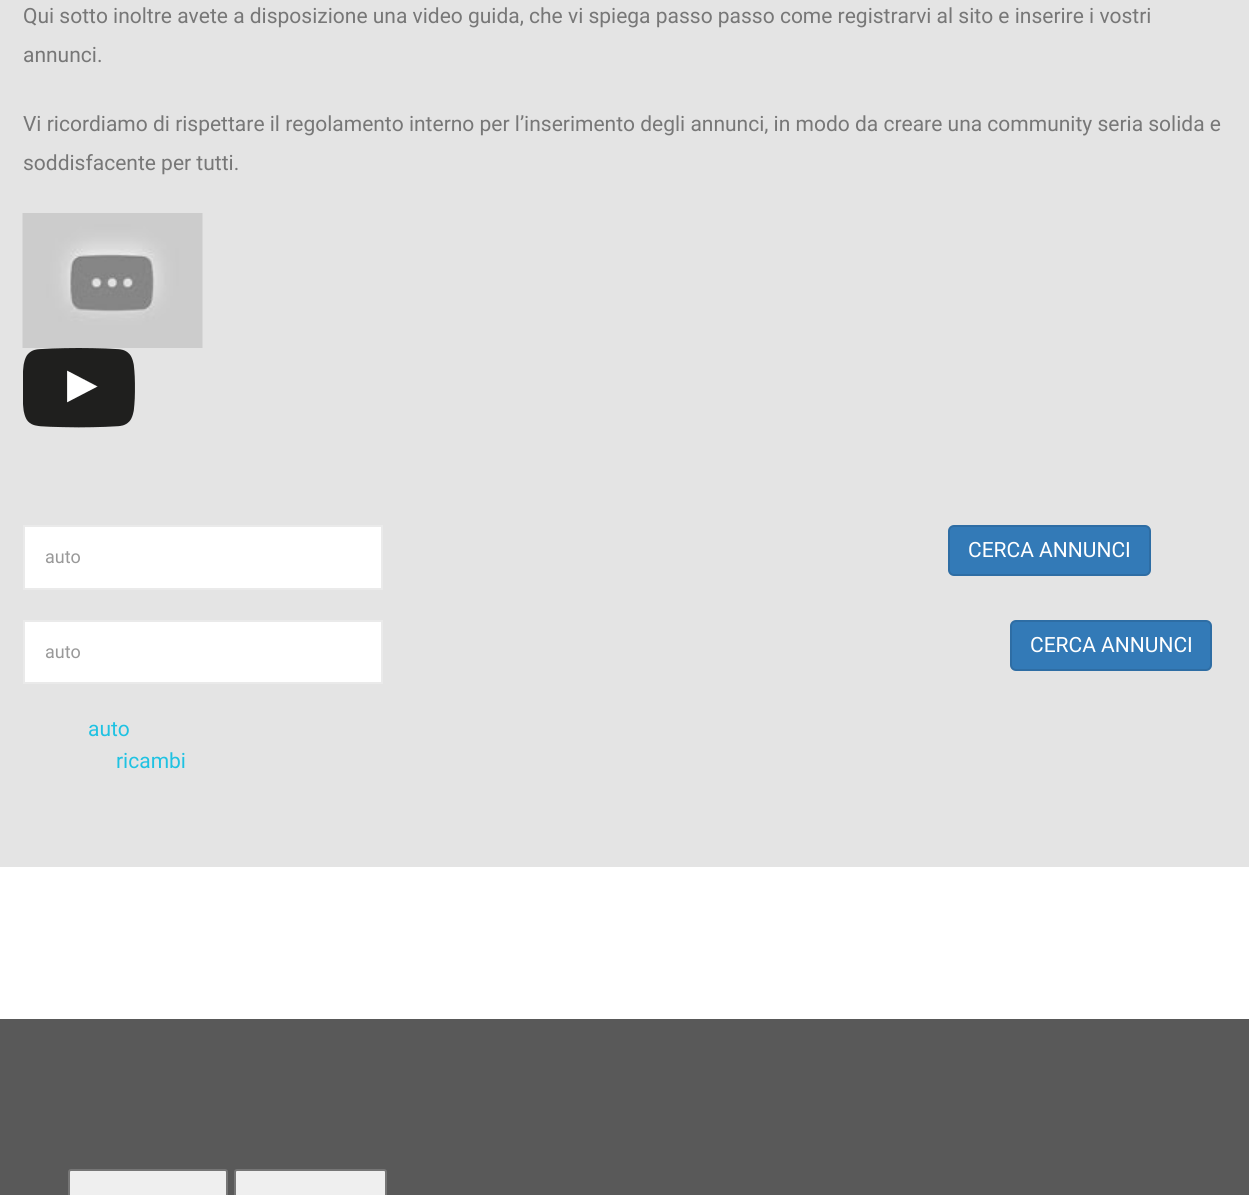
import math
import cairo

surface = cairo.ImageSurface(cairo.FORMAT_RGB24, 1249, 1195)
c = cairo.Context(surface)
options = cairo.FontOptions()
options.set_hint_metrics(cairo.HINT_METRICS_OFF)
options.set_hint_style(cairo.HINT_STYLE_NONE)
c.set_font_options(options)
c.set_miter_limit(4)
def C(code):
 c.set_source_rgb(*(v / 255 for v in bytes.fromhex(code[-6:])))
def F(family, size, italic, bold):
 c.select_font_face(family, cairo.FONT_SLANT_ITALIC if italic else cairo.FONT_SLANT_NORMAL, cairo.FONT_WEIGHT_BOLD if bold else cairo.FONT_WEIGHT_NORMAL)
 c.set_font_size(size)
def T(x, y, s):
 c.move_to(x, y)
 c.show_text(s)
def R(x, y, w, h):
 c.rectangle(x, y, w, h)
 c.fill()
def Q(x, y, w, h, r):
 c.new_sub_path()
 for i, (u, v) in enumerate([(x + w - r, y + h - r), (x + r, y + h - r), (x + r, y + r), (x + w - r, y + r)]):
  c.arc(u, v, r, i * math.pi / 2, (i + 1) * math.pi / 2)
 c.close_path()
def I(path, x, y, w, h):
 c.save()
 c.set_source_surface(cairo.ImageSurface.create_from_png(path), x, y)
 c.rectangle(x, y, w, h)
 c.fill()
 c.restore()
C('e4e4e4')
c.paint()
F('Roboto',21,0,0)
C('777777')
T(23,23,'Qui sotto inoltre avete a disposizione una video guida, che vi spiega passo passo come registrarvi al sito e inserire i vostri')
T(23,62,'annunci.')
T(23,131,'Vi ricordiamo di rispettare il regolamento interno per l’inserimento degli annunci, in modo da creare una community seria solida e')
T(23,170,'soddisfacente per tutti.')
I('1.png',22,213,181,135)
I('2.png',23,348,112,80)
C('ffffff')
c.rectangle(24,526,358,63)
c.fill_preserve()
C('eaeaea')
c.stroke()
F('Roboto',18,0,0)
C('999999')
T(45,563,'auto')
C('337ab7')
Q(949,526,201,49,5)
c.fill_preserve()
C('2e6da4')
c.stroke()
F('Roboto',21,0,0)
C('ffffff')
T(968,557,'CERCA ANNUNCI')
c.rectangle(24,621,358,62)
c.fill_preserve()
C('eaeaea')
c.stroke()
F('Roboto',18,0,0)
C('999999')
T(45,658,'auto')
C('337ab7')
Q(1011,621,200,49,5)
c.fill_preserve()
C('2e6da4')
c.stroke()
F('Roboto',21,0,0)
C('ffffff')
T(1030,652,'CERCA ANNUNCI')
C('1fc2e2')
T(88,736,'auto')
T(116,768,'ricambi')
C('595959')
R(0,1019,1249,176)
C('ffffff')
R(0,867,1249,152)
C('efefef')
Q(69,1170,158,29,2)
c.fill_preserve()
C('767676')
c.stroke()
C('efefef')
Q(235,1170,151,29,2)
c.fill_preserve()
C('767676')
c.stroke()
surface.write_to_png('o.png')
